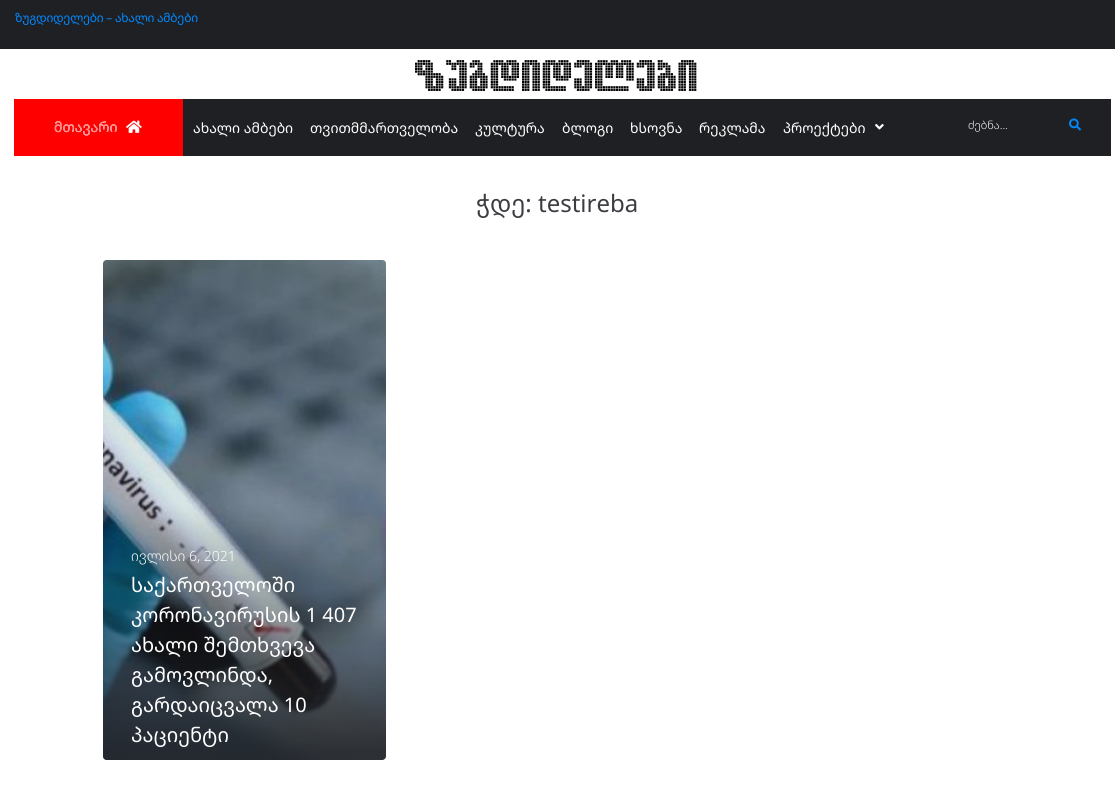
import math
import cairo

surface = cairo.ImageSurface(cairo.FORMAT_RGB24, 1115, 793)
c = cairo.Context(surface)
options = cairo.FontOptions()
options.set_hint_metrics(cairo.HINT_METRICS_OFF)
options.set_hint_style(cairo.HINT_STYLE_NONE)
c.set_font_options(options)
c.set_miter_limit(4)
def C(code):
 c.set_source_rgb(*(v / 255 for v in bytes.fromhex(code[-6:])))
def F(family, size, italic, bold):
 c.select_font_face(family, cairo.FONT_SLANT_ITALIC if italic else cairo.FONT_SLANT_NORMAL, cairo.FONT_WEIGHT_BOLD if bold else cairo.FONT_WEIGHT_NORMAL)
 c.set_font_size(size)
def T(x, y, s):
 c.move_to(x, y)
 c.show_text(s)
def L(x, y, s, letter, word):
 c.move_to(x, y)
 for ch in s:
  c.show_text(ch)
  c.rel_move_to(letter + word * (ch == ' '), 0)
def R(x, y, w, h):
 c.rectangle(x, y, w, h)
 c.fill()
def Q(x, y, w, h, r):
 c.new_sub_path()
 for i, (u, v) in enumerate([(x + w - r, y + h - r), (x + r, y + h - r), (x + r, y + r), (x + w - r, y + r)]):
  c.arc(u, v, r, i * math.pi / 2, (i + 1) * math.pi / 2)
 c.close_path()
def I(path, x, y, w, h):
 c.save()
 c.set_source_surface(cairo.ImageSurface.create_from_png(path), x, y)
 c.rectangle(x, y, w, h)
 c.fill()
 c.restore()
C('ffffff')
c.paint()
C('1f2024')
R(0,0,1115,49)
F('Noto Sans Georgian',12,0,0)
C('0088ff')
L(15,22,'ზუგდიდელები – ახალი ამბები',-.25,0)
F('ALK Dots',30,0,1)
C('000000')
T(415,85,'ზუგდიდელები')
C('ff0000')
R(14,99,169,57)
F('Noto Sans Georgian',14,0,0)
C('ffffff')
T(54,132,'მთავარი')
I('1.png',126,120,16,13)
C('ff8888')
T(54,132,'მთავარი')
C('1f2024')
R(183,99,928,57)
C('ffffff')
T(193,133,'ახალი ამბები')
T(310,133,'თვითმმართველობა')
T(475,133,'კულტურა')
T(562,133,'ბლოგი')
T(630,133,'ხსოვნა')
T(699,133,'რეკლამა')
T(783,133,'პროექტები')
I('2.png',875,124,9,6)
F('Noto Sans Georgian Light',11,0,0)
T(968,129,'ძებნა...')
I('3.png',1069,118,12,13)
F('Noto Sans Georgian',24,0,0)
C('3b3d42')
T(476,212,'ჭდე: testireba')
I('4.png',103,260,283,500)
c.set_source_rgba(0,0,0,0.1)
Q(103,260,283,500,4)
c.fill()
gradient = cairo.LinearGradient(244,460,245,760)
gradient.add_color_stop_rgba(0,0.478,0.737,1,0)
gradient.add_color_stop_rgba(.15,0.129,0.141,0.161,0)
gradient.add_color_stop_rgba(.76,0.129,0.141,0.161,.66)
gradient.add_color_stop_rgba(.97,0.129,0.141,0.161,.89)
gradient.add_color_stop_rgba(.98,0.129,0.141,0.161,.9)
c.set_source(gradient)
c.new_path()
c.move_to(103,460)
c.line_to(386,460)
c.line_to(386,756)
c.curve_to(386,758,384,760,382,760)
c.line_to(107,760)
c.curve_to(105,760,103,758,103,756)
c.close_path()
c.fill()
F('Noto Sans Georgian Light',14,0,0)
C('ffffff')
T(131,561,'ივლისი 6, 2021')
F('Noto Sans Georgian',20,0,0)
T(131,592,'საქართველოში')
T(131,622,'კორონავირუსის 1 407')
T(131,652,'ახალი შემთხვევა')
T(131,682,'გამოვლინდა,')
T(131,712,'გარდაიცვალა 10')
T(131,742,'პაციენტი')
surface.write_to_png('o.png')
